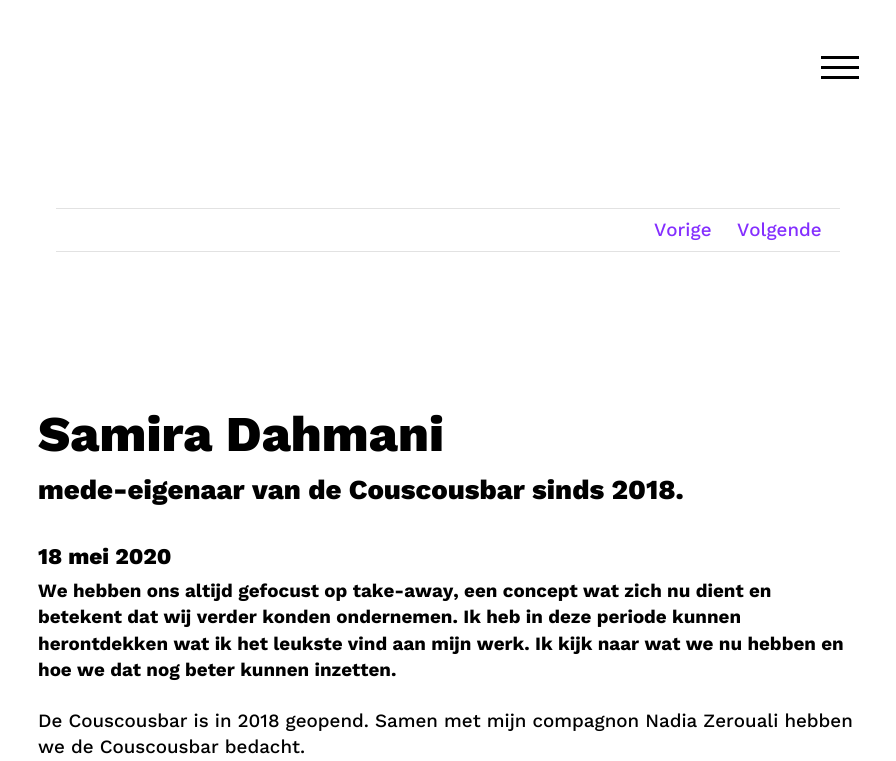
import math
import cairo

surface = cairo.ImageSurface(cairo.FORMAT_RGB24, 896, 761)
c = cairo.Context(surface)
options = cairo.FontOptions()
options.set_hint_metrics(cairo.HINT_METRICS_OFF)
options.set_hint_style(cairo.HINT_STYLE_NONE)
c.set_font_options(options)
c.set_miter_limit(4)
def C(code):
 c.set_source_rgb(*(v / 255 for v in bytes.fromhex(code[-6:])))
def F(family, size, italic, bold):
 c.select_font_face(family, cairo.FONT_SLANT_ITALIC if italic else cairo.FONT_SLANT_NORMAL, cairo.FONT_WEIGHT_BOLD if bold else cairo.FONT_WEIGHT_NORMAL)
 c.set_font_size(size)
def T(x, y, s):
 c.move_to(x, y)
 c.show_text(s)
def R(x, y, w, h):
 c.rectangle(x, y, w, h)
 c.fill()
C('ffffff')
c.paint()
C('000000')
R(821,56,38,3)
R(821,66,38,3)
R(821,76,38,3)
C('e2e2e2')
R(56,208,784,1)
R(56,251,784,1)
F('Work Sans Medium',18.75,0,0)
C('842eff')
T(654,236,'Vorige')
T(737,236,'Volgende')
F('Work Sans ExtraBold',50,0,0)
C('000000')
T(38,451,'Samira Dahmani')
F('Work Sans ExtraBold',27.5,0,0)
T(38,499,'mede-eigenaar van de Couscousbar sinds 2018.')
F('Work Sans ExtraBold',22.5,0,0)
T(38,564,'18 mei 2020')
F('Work Sans',18.75,0,1)
T(38,597,'We hebben ons altijd gefocust op take-away, een concept wat zich nu dient en')
T(38,623,'betekent dat wij verder konden ondernemen. Ik heb in deze periode kunnen')
T(38,650,'herontdekken wat ik het leukste vind aan mijn werk. Ik kijk naar wat we nu hebben en')
T(38,676,'hoe we dat nog beter kunnen inzetten.')
F('Work Sans Medium',18.75,0,0)
T(38,727,'De Couscousbar is in 2018 geopend. Samen met mijn compagnon Nadia Zerouali hebben')
T(38,753,'we de Couscousbar bedacht.')
surface.write_to_png('o.png')
